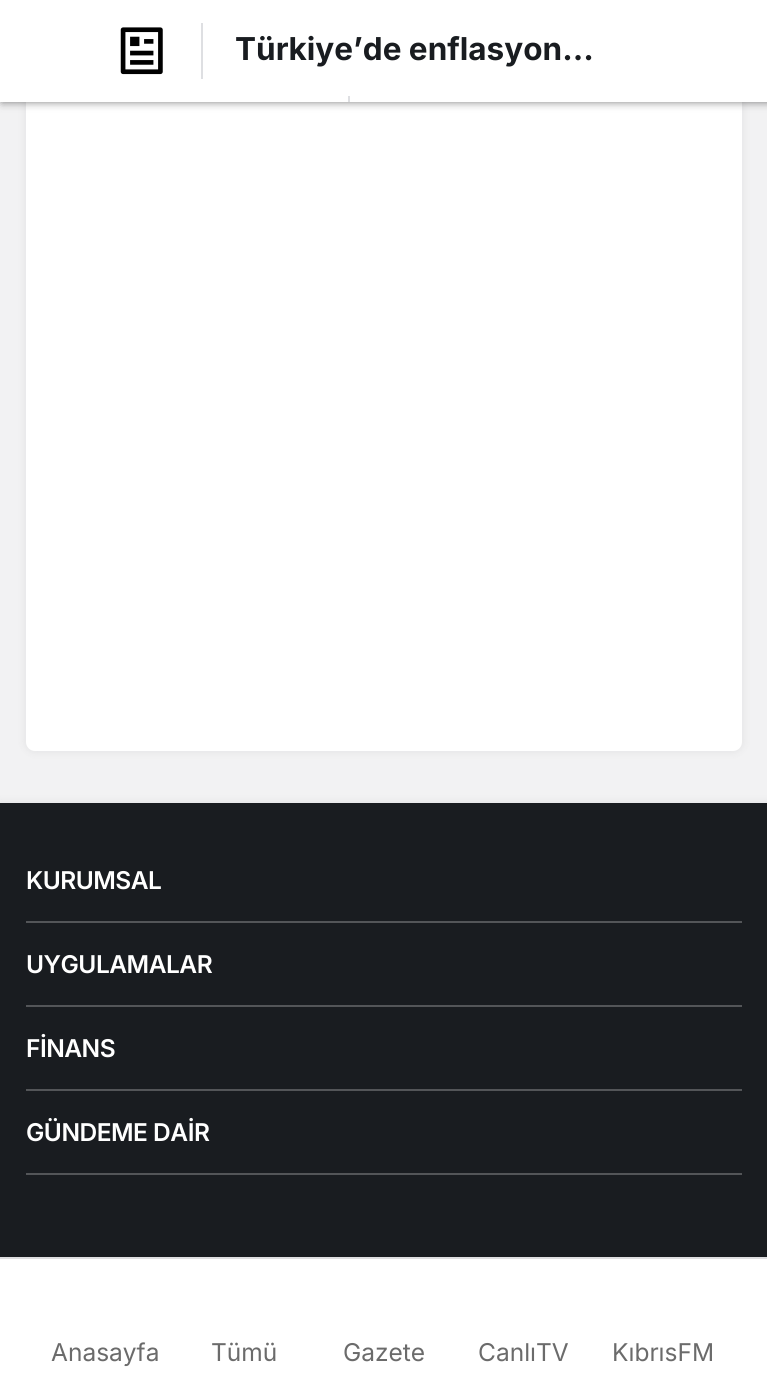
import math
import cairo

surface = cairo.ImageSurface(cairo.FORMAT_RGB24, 767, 1395)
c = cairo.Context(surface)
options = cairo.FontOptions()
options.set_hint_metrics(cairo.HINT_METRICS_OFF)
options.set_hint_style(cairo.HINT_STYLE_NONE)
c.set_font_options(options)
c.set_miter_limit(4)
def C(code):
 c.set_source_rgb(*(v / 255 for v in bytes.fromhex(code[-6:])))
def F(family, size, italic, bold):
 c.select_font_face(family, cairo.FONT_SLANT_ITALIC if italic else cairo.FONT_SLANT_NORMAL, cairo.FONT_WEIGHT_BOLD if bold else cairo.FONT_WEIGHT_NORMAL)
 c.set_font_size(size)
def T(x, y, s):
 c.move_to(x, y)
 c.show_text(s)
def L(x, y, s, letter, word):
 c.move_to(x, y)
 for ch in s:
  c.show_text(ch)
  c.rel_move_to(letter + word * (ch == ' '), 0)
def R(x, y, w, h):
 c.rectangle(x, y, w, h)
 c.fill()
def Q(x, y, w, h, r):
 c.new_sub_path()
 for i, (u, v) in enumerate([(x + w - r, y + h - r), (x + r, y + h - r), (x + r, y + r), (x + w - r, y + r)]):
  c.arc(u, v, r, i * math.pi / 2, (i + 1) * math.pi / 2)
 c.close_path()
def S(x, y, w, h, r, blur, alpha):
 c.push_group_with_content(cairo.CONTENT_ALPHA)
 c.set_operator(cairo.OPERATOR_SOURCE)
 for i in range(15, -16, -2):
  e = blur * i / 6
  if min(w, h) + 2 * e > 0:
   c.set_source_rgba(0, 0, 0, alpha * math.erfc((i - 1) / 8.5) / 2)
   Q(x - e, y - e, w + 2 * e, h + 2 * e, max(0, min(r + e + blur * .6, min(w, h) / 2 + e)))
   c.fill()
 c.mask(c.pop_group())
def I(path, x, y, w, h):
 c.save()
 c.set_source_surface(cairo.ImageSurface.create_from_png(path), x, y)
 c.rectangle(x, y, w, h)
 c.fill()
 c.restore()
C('f2f2f3')
c.paint()
C('32353d')
S(26,-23,716,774,9,4.5,.1)
C('ffffff')
Q(26,-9,716,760,9)
c.fill()
C('000000')
S(2,0,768,102,0,4.5,.5)
C('ffffff')
R(0,0,767,102)
I('1.png',120,27,43,48)
C('dedfe2')
R(201,23,2,56)
F('Inter',31.5,0,1)
C('191c20')
T(235,60,'Türkiye’de enflasyon…')
C('dedfe2')
R(348,96,2,6)
C('32353d')
S(0,803,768,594,0,4.5,.1)
C('191c20')
R(0,803,767,454)
C('535558')
R(26,921,716,2)
F('Inter SemiBold',24.5,0,0)
C('ffffff')
L(26,889,'KURUMSAL',-.5,0)
C('535558')
R(26,1005,716,2)
C('ffffff')
L(26,973,'UYGULAMALAR',-.5,0)
C('535558')
R(26,1089,716,2)
C('ffffff')
L(26,1057,'FİNANS',-.5,0)
C('535558')
R(26,1173,716,2)
C('ffffff')
L(26,1141,'GÜNDEME DAİR',-.5,0)
R(0,1259,767,136)
C('dedee0')
R(0,1257,767,2)
F('Inter',24.5,0,0)
C('6b6b6b')
T(51,1361,'Anasayfa')
T(211,1361,'Tümü')
T(343,1361,'Gazete')
T(478,1361,'CanlıTV')
T(612,1361,'KıbrısFM')
surface.write_to_png('o.png')
